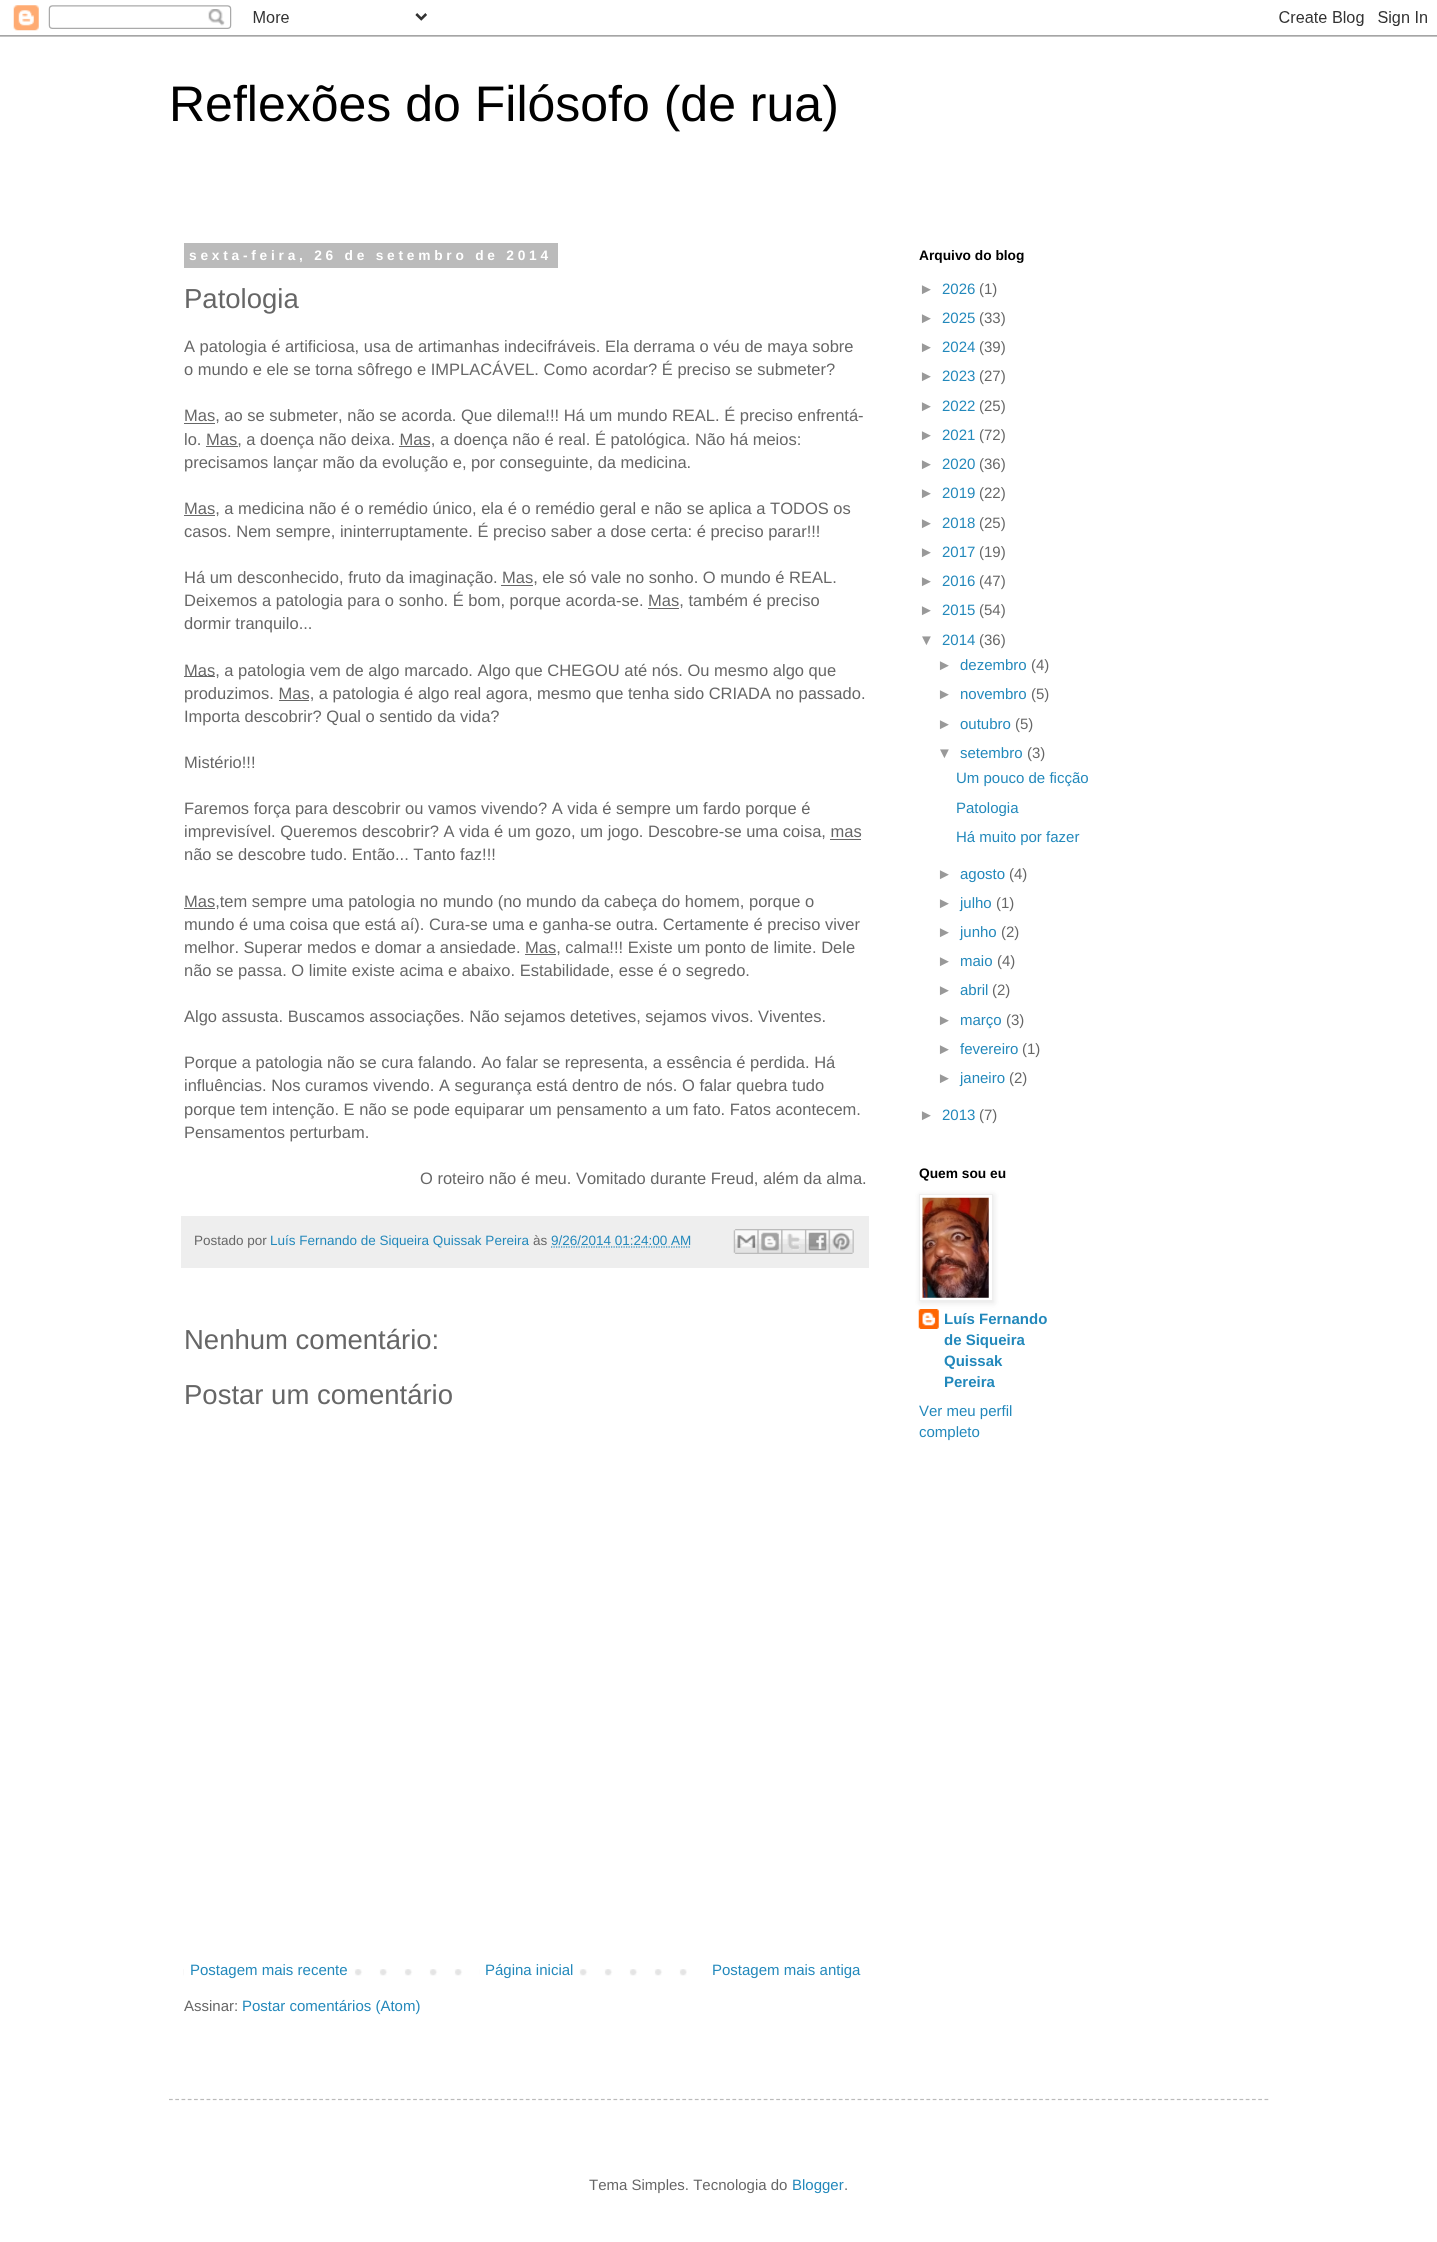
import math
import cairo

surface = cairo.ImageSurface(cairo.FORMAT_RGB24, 1437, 2242)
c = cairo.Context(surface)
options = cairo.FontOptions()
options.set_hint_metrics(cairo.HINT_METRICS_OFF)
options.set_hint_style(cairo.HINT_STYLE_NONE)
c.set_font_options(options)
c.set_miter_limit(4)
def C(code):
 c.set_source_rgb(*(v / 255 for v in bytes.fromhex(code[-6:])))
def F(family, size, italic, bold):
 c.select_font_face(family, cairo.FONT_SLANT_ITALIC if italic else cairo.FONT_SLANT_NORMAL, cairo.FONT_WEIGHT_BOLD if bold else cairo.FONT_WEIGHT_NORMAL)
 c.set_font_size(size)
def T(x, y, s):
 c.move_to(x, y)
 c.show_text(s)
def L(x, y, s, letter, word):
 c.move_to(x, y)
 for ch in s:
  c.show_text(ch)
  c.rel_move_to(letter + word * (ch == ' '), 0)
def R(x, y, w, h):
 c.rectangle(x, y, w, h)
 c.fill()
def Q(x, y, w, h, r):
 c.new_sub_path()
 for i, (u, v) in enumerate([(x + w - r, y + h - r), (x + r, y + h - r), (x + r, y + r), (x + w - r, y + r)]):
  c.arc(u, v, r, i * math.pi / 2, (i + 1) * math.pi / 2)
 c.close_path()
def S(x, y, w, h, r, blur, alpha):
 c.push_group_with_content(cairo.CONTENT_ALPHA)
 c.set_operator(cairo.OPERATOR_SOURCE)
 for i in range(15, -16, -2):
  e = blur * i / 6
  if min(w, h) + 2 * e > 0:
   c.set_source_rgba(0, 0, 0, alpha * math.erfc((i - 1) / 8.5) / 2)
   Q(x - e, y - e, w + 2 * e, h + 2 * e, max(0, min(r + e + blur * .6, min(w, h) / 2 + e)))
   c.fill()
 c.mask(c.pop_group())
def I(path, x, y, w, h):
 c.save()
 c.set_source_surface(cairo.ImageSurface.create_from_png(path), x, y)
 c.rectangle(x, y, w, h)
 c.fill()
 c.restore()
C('ffffff')
c.paint()
I('1.png',0,5,1437,32)
F('Liberation Sans',50,0,0)
C('000000')
T(169,121,'Reflexões do Filósofo (de rua)')
C('bbbbbb')
R(184,243,374,25)
F('Liberation Sans',13.75,0,1)
C('ffffff')
L(189,260,'sexta-feira, 26 de setembro de 2014',3.75,0)
F('Liberation Sans',27.5,0,0)
C('666666')
T(184,308,'Patologia')
F('Liberation Sans',16.5,0,0)
T(184,352,'A patologia é artificiosa, usa de artimanhas indecifráveis. Ela derrama o véu de maya sobre')
T(184,375,'o mundo e ele se torna sôfrego e IMPLACÁVEL. Como acordar? É preciso se submeter?')
R(184,423,31,1)
T(184,421,'Mas, ao se submeter, não se acorda. Que dilema!!! Há um mundo REAL. É preciso enfrentá-')
T(184,445,'lo. Mas, a doença não deixa. Mas, a doença não é real. É patológica. Não há meios:')
R(206,446,32,1)
R(399,446,31,1)
T(184,468,'precisamos lançar mão da evolução e, por conseguinte, da medicina.')
R(184,515,31,1)
T(184,514,'Mas, a medicina não é o remédio único, ela é o remédio geral e não se aplica a TODOS os')
T(184,537,'casos. Nem sempre, ininterruptamente. É preciso saber a dose certa: é preciso parar!!!')
T(184,583,'Há um desconhecido, fruto da imaginação.')
R(501,585,32,1)
T(502,583,'Mas, ele só vale no sonho. O mundo é REAL.')
T(184,606,'Deixemos a patologia para o sonho. É bom, porque acorda-se. Mas, também é preciso')
R(648,608,31,1)
T(184,629,'dormir tranquilo...')
R(184,676,31,1)
T(184,676,'Mas, a patologia vem de algo marcado. Algo que CHEGOU até nós. Ou mesmo algo que')
T(184,699,'produzimos. Mas, a patologia é algo real agora, mesmo que tenha sido CRIADA no passado.')
R(279,700,30,1)
T(184,722,'Importa descobrir? Qual o sentido da vida?')
T(184,768,'Mistério!!!')
T(184,814,'Faremos força para descobrir ou vamos vivendo? A vida é sempre um fardo porque é')
T(184,837,'imprevisível. Queremos descobrir? A vida é um gozo, um jogo. Descobre-se uma coisa, mas')
R(830,839,31,1)
T(184,860,'não se descobre tudo. Então... Tanto faz!!!')
R(184,908,31,1)
T(184,907,'Mas,tem sempre uma patologia no mundo (no mundo da cabeça do homem, porque o')
T(184,930,'mundo é uma coisa que está aí). Cura-se uma e ganha-se outra. Certamente é preciso viver')
T(184,953,'melhor. Superar medos e domar a ansiedade.')
R(525,954,31,1)
T(525,953,'Mas, calma!!! Existe um ponto de limite. Dele')
T(184,976,'não se passa. O limite existe acima e abaixo. Estabilidade, esse é o segredo.')
T(184,1022,'Algo assusta. Buscamos associações. Não sejamos detetives, sejamos vivos. Viventes.')
T(184,1068,'Porque a patologia não se cura falando. Ao falar se representa, a essência é perdida. Há')
T(184,1091,'influências. Nos curamos vivendo. A segurança está dentro de nós. O falar quebra tudo')
T(184,1115,'porque tem intenção. E não se pode equiparar um pensamento a um fato. Fatos acontecem.')
T(184,1138,'Pensamentos perturbam.')
T(420,1184,'O roteiro não é meu. Vomitado durante Freud, além da alma.')
C('eeeeee')
R(181,1216,688,52)
F('Liberation Sans',13.5,0,0)
C('666666')
T(194,1245,'Postado por')
C('2288bb')
T(270,1245,'Luís Fernando de Siqueira Quissak Pereira')
C('666666')
T(533,1245,'às')
C('2288bb')
T(551,1245,'9/26/2014 01:24:00 AM')
c.new_path()
c.move_to(551,1247)
c.line_to(691,1247)
c.set_line_width(1.2)
c.set_dash([1.25,1.25])
c.stroke()
I('2.png',733,1229,25,25)
I('3.png',757,1229,25,25)
I('4.png',781,1229,24,25)
I('5.png',805,1229,24,25)
I('6.png',828,1229,26,25)
F('Liberation Sans',27.5,0,0)
C('666666')
T(184,1349,'Nenhum comentário:')
T(184,1404,'Postar um comentário')
I('7.png',183,1969,504,7)
C('ffffff')
R(184,1969,153,7)
F('Liberation Sans',15,0,0)
C('2288bb')
T(190,1975,'Postagem mais recente')
C('ffffff')
R(480,1969,82,7)
C('2288bb')
T(485,1975,'Página inicial')
T(712,1975,'Postagem mais antiga')
C('666666')
T(184,2011,'Assinar:')
C('2288bb')
T(242,2011,'Postar comentários (Atom)')
F('Liberation Sans',13.75,0,1)
C('000000')
T(919,260,'Arquivo do blog')
F('Liberation Sans',15,0,0)
C('999999')
T(919,294,'►')
C('2288bb')
T(942,294,'2026')
C('666666')
T(979,294,'(1)')
C('999999')
T(919,323,'►')
C('2288bb')
T(942,323,'2025')
C('666666')
T(979,323,'(33)')
C('999999')
T(919,352,'►')
C('2288bb')
T(942,352,'2024')
C('666666')
T(979,352,'(39)')
C('999999')
T(919,381,'►')
C('2288bb')
T(942,381,'2023')
C('666666')
T(979,381,'(27)')
C('999999')
T(919,411,'►')
C('2288bb')
T(942,411,'2022')
C('666666')
T(979,411,'(25)')
C('999999')
T(919,440,'►')
C('2288bb')
T(942,440,'2021')
C('666666')
T(979,440,'(72)')
C('999999')
T(919,469,'►')
C('2288bb')
T(942,469,'2020')
C('666666')
T(979,469,'(36)')
C('999999')
T(919,498,'►')
C('2288bb')
T(942,498,'2019')
C('666666')
T(979,498,'(22)')
C('999999')
T(919,528,'►')
C('2288bb')
T(942,528,'2018')
C('666666')
T(979,528,'(25)')
C('999999')
T(919,557,'►')
C('2288bb')
T(942,557,'2017')
C('666666')
T(979,557,'(19)')
C('999999')
T(919,586,'►')
C('2288bb')
T(942,586,'2016')
C('666666')
T(979,586,'(47)')
C('999999')
T(919,615,'►')
C('2288bb')
T(942,615,'2015')
C('666666')
T(979,615,'(54)')
C('999999')
T(919,645,'▼')
C('2288bb')
T(942,645,'2014')
C('666666')
T(979,645,'(36)')
C('999999')
T(937,670,'►')
C('2288bb')
T(960,670,'dezembro')
C('666666')
T(1031,670,'(4)')
C('999999')
T(937,699,'►')
C('2288bb')
T(960,699,'novembro')
C('666666')
T(1031,699,'(5)')
C('999999')
T(937,729,'►')
C('2288bb')
T(960,729,'outubro')
C('666666')
T(1015,729,'(5)')
C('999999')
T(937,758,'▼')
C('2288bb')
T(960,758,'setembro')
C('666666')
T(1027,758,'(3)')
C('2288bb')
T(956,783,'Um pouco de ficção')
T(956,813,'Patologia')
T(956,842,'Há muito por fazer')
C('999999')
T(937,879,'►')
C('2288bb')
T(960,879,'agosto')
C('666666')
T(1009,879,'(4)')
C('999999')
T(937,908,'►')
C('2288bb')
T(960,908,'julho')
C('666666')
T(996,908,'(1)')
C('999999')
T(937,937,'►')
C('2288bb')
T(960,937,'junho')
C('666666')
T(1001,937,'(2)')
C('999999')
T(937,966,'►')
C('2288bb')
T(960,966,'maio')
C('666666')
T(997,966,'(4)')
C('999999')
T(937,995,'►')
C('2288bb')
T(960,995,'abril')
C('666666')
T(992,995,'(2)')
C('999999')
T(937,1025,'►')
C('2288bb')
T(960,1025,'março')
C('666666')
T(1006,1025,'(3)')
C('999999')
T(937,1054,'►')
C('2288bb')
T(960,1054,'fevereiro')
C('666666')
T(1022,1054,'(1)')
C('999999')
T(937,1083,'►')
C('2288bb')
T(960,1083,'janeiro')
C('666666')
T(1009,1083,'(2)')
C('999999')
T(919,1120,'►')
C('2288bb')
T(942,1120,'2013')
C('666666')
T(979,1120,'(7)')
F('Liberation Sans',13.75,0,1)
C('000000')
T(919,1178,'Quem sou eu')
I('9.png',918,1309,21,20)
C('000000')
S(920,1195,74,108,0,3,.1)
C('ffffff')
c.rectangle(919.5,1194.5,73,106)
c.fill_preserve()
C('eeeeee')
c.set_line_width(1)
c.set_dash([])
c.stroke()
I('8.png',922,1197,67,101)
F('Liberation Sans',15,0,1)
C('2288bb')
T(944,1324,'Luís Fernando')
T(944,1345,'de Siqueira')
T(944,1366,'Quissak')
T(944,1387,'Pereira')
F('Liberation Sans',15,0,0)
T(919,1416,'Ver meu perfil')
T(919,1437,'completo')
c.new_path()
c.move_to(169,2099.5)
c.line_to(1269,2099.5)
C('bbbbbb')
c.set_line_width(1.2)
c.set_dash([3.75,2.51])
c.stroke()
C('666666')
T(589,2190,'Tema Simples. Tecnologia do')
C('2288bb')
T(792,2190,'Blogger')
C('666666')
T(844,2190,'.')
surface.write_to_png('o.png')
